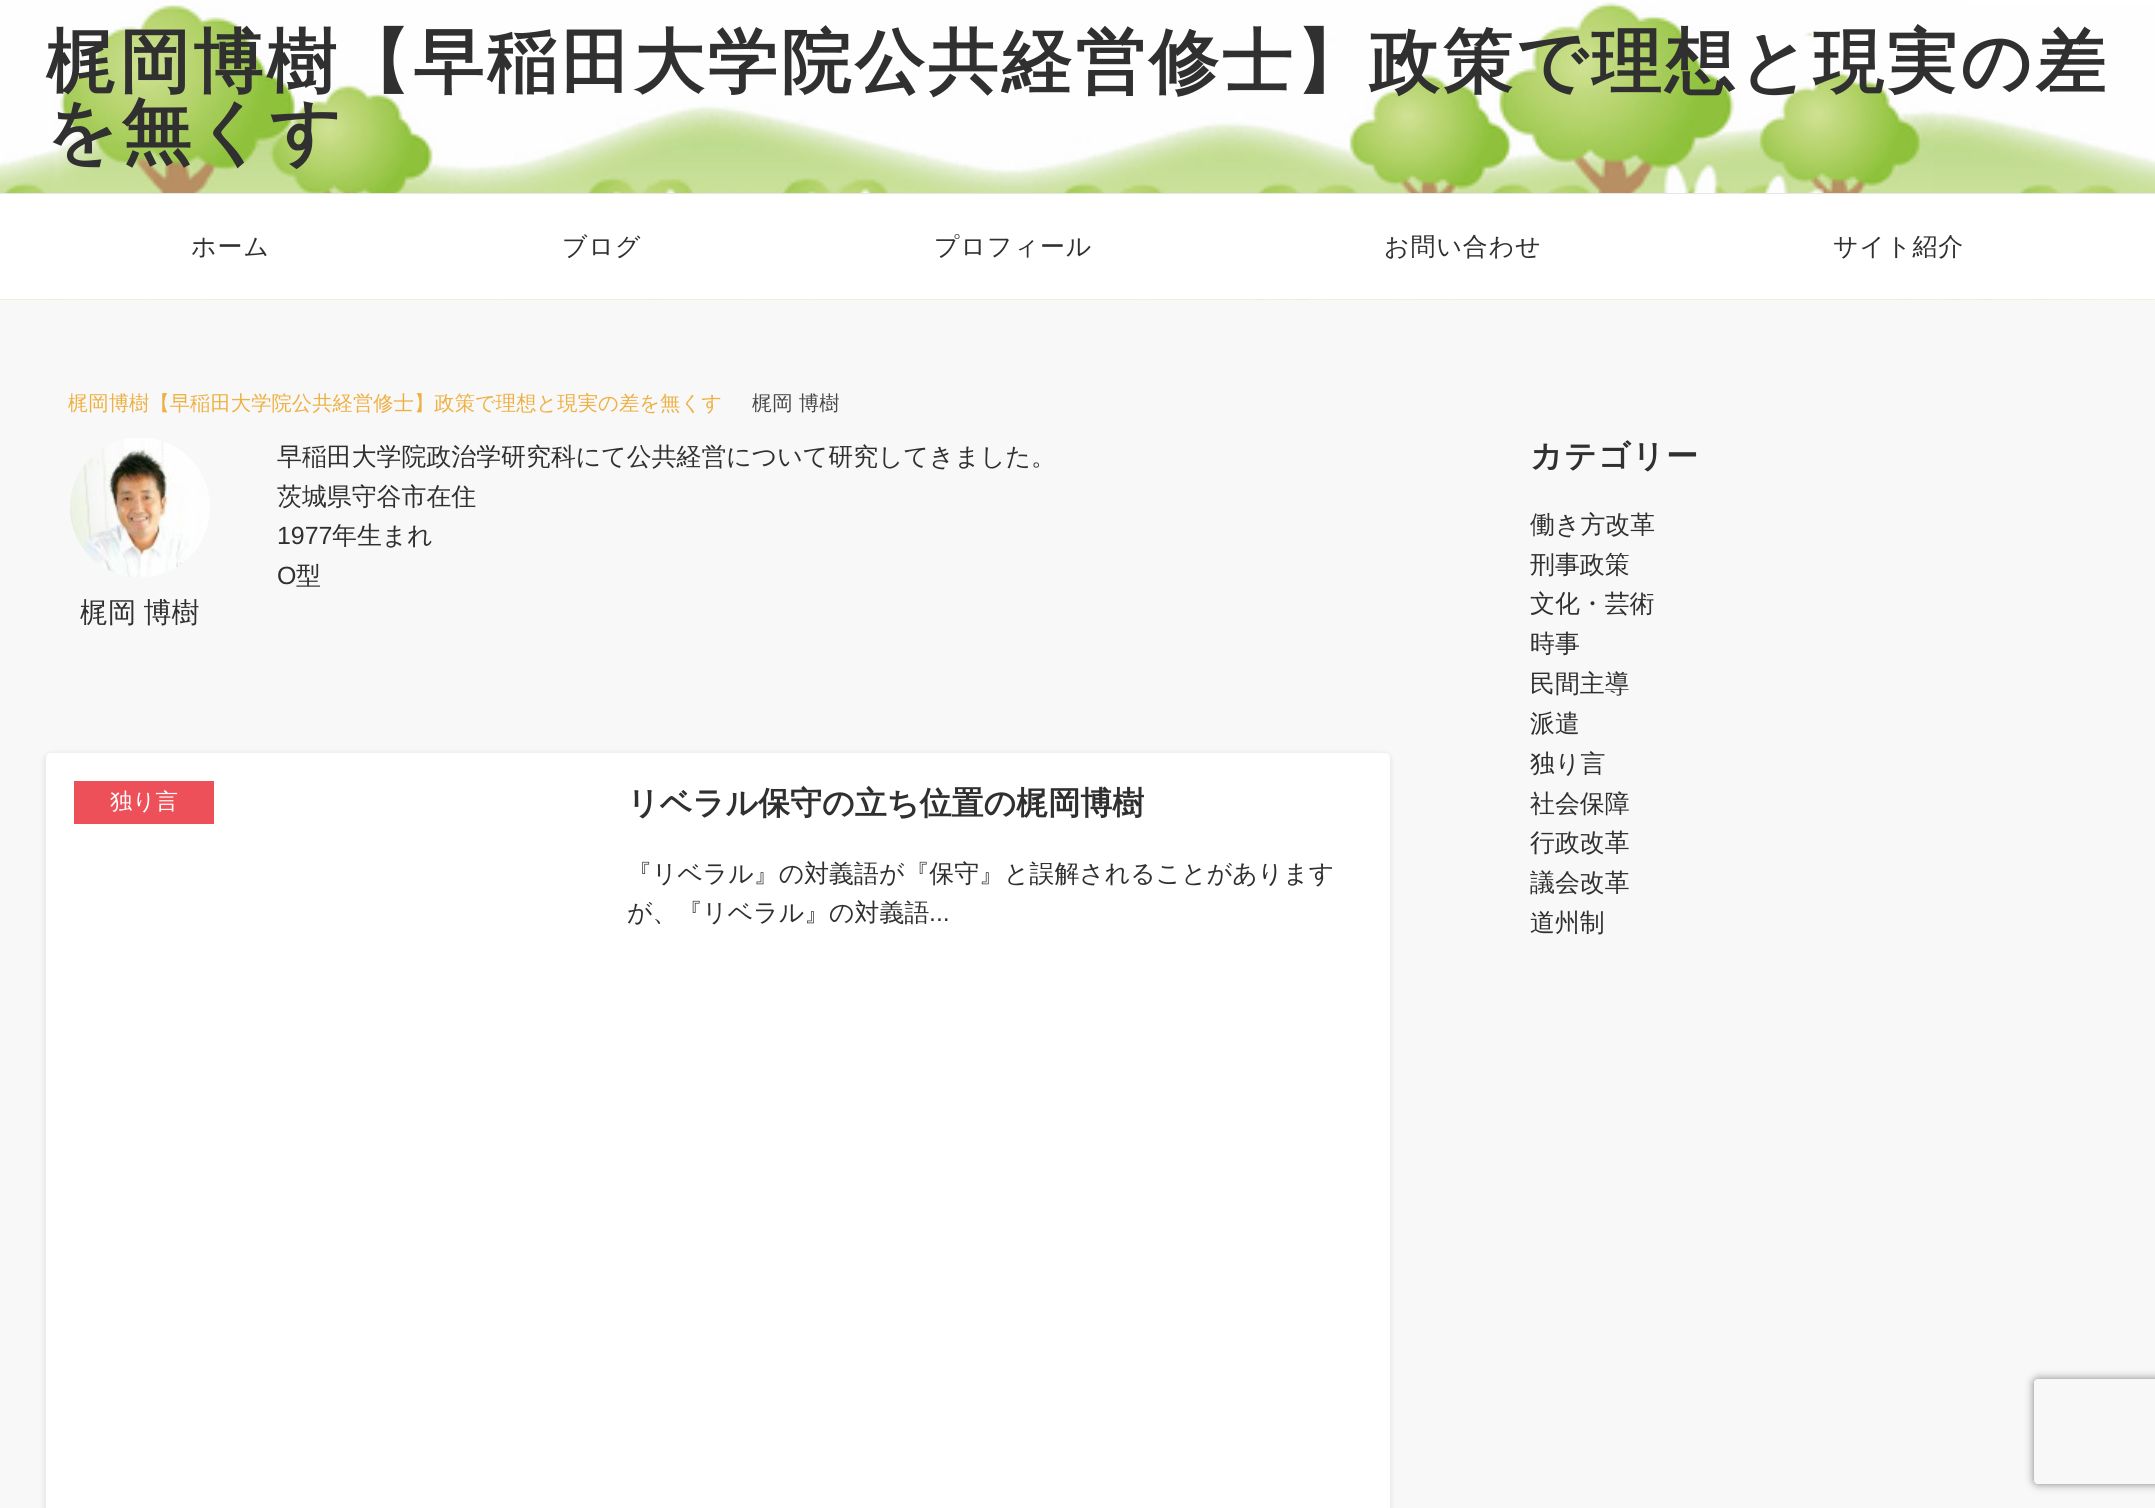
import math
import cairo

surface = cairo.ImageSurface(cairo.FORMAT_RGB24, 2155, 1508)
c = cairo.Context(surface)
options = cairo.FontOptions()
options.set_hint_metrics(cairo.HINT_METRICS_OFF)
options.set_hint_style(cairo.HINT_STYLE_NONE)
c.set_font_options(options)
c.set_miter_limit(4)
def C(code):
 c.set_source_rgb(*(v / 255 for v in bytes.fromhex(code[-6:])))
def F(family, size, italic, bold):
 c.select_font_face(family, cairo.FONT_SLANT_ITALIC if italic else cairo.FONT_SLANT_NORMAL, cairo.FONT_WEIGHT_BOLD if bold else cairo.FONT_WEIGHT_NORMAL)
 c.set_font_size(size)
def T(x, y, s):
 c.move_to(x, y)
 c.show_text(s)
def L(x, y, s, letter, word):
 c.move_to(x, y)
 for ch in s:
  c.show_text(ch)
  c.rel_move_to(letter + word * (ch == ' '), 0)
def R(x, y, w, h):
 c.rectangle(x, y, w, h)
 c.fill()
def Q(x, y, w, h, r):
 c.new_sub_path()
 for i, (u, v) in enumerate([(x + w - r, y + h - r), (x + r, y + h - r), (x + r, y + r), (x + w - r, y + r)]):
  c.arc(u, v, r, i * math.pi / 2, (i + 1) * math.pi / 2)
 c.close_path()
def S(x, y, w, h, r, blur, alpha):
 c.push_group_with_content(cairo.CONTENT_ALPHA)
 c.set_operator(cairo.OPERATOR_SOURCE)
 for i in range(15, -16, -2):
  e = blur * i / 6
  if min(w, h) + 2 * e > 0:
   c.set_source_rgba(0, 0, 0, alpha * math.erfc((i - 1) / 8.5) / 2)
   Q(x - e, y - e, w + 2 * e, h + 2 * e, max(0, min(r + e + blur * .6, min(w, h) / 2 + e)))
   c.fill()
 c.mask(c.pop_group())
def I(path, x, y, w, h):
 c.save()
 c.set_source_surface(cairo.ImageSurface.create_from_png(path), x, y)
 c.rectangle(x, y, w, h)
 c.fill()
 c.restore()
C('f8f8f8')
c.paint()
I('1.png',0,0,2155,300)
C('e6e6e6')
R(0,193,2155,1)
F('WenQuanYi Zen Hei',70,0,1)
C('303030')
L(46,86,'梶岡博樹【早稲田大学院公共経営修士】政策で理想と現実の差',3.5,0)
L(46,156,'を無くす',3.5,0)
C('ffffff')
R(0,194,2155,105)
F('WenQuanYi Zen Hei Medium',24.9,0,0)
C('303030')
L(191,255,'ホーム',1,0)
L(562,255,'ブログ',1,0)
L(934,255,'プロフィール',1,0)
L(1384,255,'お問い合わせ',1,0)
L(1833,255,'サイト紹介',1,0)
F('WenQuanYi Zen Hei Medium',20.35,0,0)
C('eeb043')
T(68,410,'梶岡博樹【早稲田大学院公共経営修士】政策で理想と現実の差を無くす')
C('484848')
T(752,410,'梶岡 博樹')
F('WenQuanYi Zen Hei Medium',24.9,0,0)
C('303030')
T(277,465,'早稲田大学院政治学研究科にて公共経営について研究してきました。')
T(277,505,'茨城県守谷市在住')
F('Liberation Sans',24.9,0,0)
T(277,544,'1977')
F('WenQuanYi Zen Hei Medium',24.9,0,0)
T(332,544,'年生まれ')
F('Liberation Sans',24.9,0,0)
T(277,584,'O')
F('WenQuanYi Zen Hei Medium',24.9,0,0)
T(296,584,'型')
I('2.png',70,438,140,139)
F('WenQuanYi Zen Hei Medium',28,0,0)
L(80,622,'梶岡 博樹',0,-1)
C('000000')
S(44,753,1347,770,7,2.5,.08)
C('ffffff')
Q(46,753,1344,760,5)
c.fill()
C('ed5058')
R(74,781,140,43)
F('WenQuanYi Zen Hei Medium',22.5,0,0)
C('ffffff')
T(110,809,'独り言')
F('WenQuanYi Zen Hei',32,0,1)
C('303030')
T(627,814,'リベラル保守の立ち位置の梶岡博樹')
F('WenQuanYi Zen Hei Medium',24.9,0,0)
T(627,882,'『リベラル』の対義語が『保守』と誤解されることがあります')
T(627,921,'が、『リベラル』の対義語')
F('Liberation Sans',24.9,0,0)
T(929,921,'...')
F('WenQuanYi Zen Hei',32,0,1)
L(1530,467,'カテゴリー',1.25,0)
F('WenQuanYi Zen Hei Medium',24.9,0,0)
T(1530,533,'働き方改革')
T(1530,573,'刑事政策')
T(1530,612,'文化・芸術')
T(1530,652,'時事')
T(1530,692,'民間主導')
T(1530,732,'派遣')
T(1530,772,'独り言')
T(1530,812,'社会保障')
T(1530,851,'行政改革')
T(1530,891,'議会改革')
T(1530,931,'道州制')
c.save()
c.set_fill_rule(cairo.FILL_RULE_EVEN_ODD)
c.new_path()
c.move_to(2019,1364)
c.line_to(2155,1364)
c.line_to(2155,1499)
c.line_to(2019,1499)
c.close_path()
c.move_to(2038,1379)
c.line_to(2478,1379)
c.curve_to(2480,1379,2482,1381,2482,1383)
c.line_to(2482,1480)
c.curve_to(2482,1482,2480,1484,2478,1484)
c.line_to(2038,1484)
c.curve_to(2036,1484,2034,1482,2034,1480)
c.line_to(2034,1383)
c.curve_to(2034,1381,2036,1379,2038,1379)
c.close_path()
c.clip()
C('808080')
S(2034,1379,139,105,4,4.5,1)
c.restore()
surface.write_to_png('o.png')
